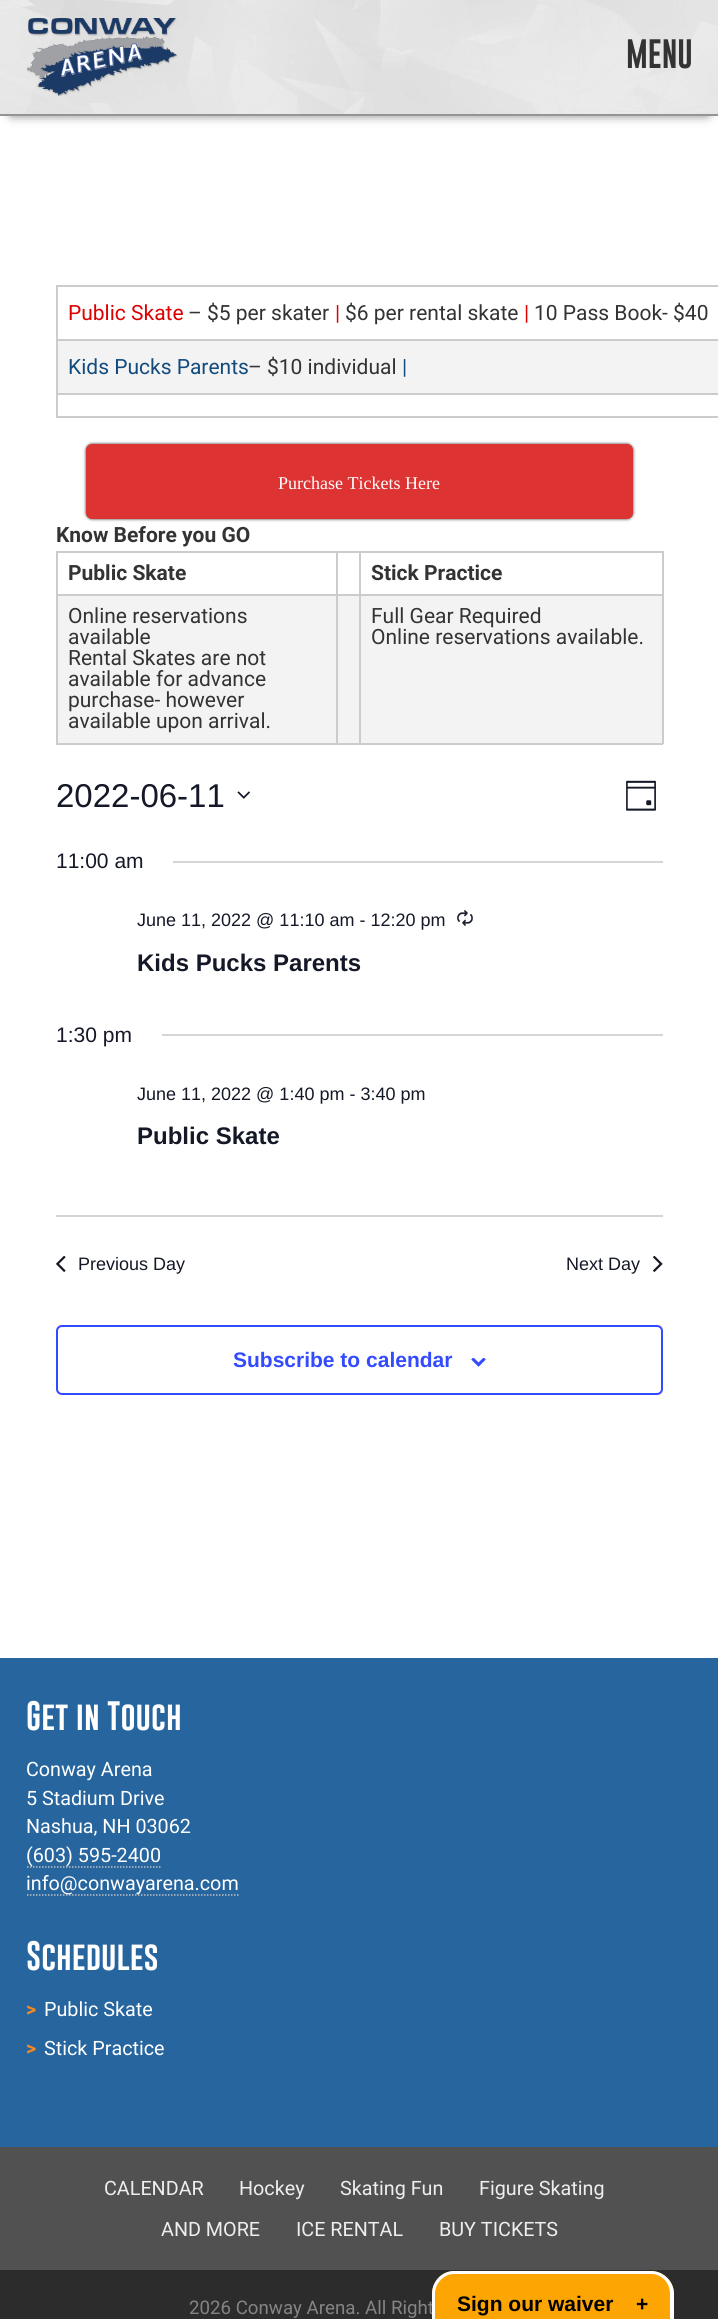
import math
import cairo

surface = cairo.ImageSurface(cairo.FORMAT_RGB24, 718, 2319)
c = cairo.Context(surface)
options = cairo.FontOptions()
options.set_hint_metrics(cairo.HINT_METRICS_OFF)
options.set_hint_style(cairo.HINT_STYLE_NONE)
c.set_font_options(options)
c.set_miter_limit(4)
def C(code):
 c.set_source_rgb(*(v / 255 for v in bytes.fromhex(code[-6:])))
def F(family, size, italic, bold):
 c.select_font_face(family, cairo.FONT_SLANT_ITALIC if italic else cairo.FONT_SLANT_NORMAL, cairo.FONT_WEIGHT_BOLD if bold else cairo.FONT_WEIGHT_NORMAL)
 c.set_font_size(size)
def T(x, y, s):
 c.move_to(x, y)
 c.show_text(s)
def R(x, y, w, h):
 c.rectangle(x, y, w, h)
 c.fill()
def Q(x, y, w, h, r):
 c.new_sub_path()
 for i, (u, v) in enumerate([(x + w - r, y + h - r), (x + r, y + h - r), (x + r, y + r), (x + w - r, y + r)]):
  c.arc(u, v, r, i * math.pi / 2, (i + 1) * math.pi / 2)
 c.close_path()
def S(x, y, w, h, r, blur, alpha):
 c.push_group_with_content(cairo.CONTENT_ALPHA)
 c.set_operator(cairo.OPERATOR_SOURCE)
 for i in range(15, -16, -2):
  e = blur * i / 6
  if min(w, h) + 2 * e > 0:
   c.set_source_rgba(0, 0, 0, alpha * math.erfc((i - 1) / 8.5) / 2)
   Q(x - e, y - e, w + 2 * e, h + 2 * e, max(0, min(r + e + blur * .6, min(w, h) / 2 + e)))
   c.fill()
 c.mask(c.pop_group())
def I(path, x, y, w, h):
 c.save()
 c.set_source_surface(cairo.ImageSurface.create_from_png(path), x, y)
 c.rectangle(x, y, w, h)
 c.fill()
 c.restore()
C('ffffff')
c.paint()
C('333333')
S(12,21,695,92,0,6,1)
I('1.png',0,0,718,114)
C('929498')
R(0,114,718,2)
I('2.png',27,18,150,78)
F('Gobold',30,0,1)
C('333333')
T(626,68,'MENU')
C('cccccc')
R(56,285,662,2)
R(56,339,662,2)
R(56,393,662,2)
R(56,416,662,2)
R(56,393,2,24)
R(56,339,2,56)
R(56,285,2,56)
F('Roboto',21,0,0)
C('dd0000')
T(68,320,'Public Skate')
C('333333')
T(188,320,'– $5 per skater')
C('dd0000')
T(335,320,'|')
C('333333')
T(345,320,'$6 per rental skate')
C('dd0000')
T(524,320,'|')
C('333333')
T(534,320,'10 Pass Book- $40')
C('f3f3f3')
R(58,341,660,52)
C('114b7d')
T(68,374,'Kids Pucks Parents')
C('333333')
T(248,374,'– $10 individual')
C('114b7d')
T(402,374,'|')
C('333333')
S(86,444,547,75,6,1.5,1)
C('dd3333')
Q(87.5,445.5,544,72,4.5)
c.fill_preserve()
c.set_line_width(3)
c.stroke()
F('Liberation Serif',18,0,0)
C('ffffff')
T(278,489,'Purchase Tickets Here')
F('Roboto',21,0,1)
C('333333')
T(56,542,'Know Before you GO')
C('cccccc')
R(359,551,304,2)
R(359,594,304,2)
C('f3f3f3')
R(58,596,604,147)
C('cccccc')
R(662,594,2,150)
R(359,743,304,2)
R(359,594,2,150)
R(336,594,24,2)
R(359,551,2,45)
R(336,551,24,2)
R(336,743,24,2)
R(336,594,2,150)
R(56,594,282,2)
R(336,551,2,45)
R(56,551,282,2)
R(56,743,282,2)
R(56,594,2,150)
R(56,551,2,45)
C('333333')
T(68,580,'Public Skate')
C('cccccc')
R(662,551,2,45)
C('333333')
T(371,580,'Stick Practice')
F('Roboto',21,0,0)
T(68,623,'Online reservations')
T(68,644,'available')
T(68,665,'Rental Skates are not')
T(68,686,'available for advance')
T(68,707,'purchase- however')
T(68,728,'available upon arrival.')
T(371,623,'Full Gear Required')
T(371,644,'Online reservations available.')
F('Liberation Sans',33,0,0)
C('141827')
T(56,807,'2022-06-11')
I('3.png',237,791,13,8)
I('4.png',626,780,30,31)
F('Liberation Sans',21,0,0)
T(56,868,'11:00 am')
C('d5d5d5')
R(173,861,490,2)
F('Liberation Sans',18,0,0)
C('141827')
T(137,926,'June 11, 2022 @ 11:10 am - 12:20 pm')
I('5.png',457,910,16,16)
F('Liberation Sans',24,0,1)
T(137,971,'Kids Pucks Parents')
F('Liberation Sans',21,0,0)
T(56,1042,'1:30 pm')
C('d5d5d5')
R(162,1034,501,2)
F('Liberation Sans',18,0,0)
C('141827')
T(137,1100,'June 11, 2022 @ 1:40 pm - 3:40 pm')
F('Liberation Sans',24,0,1)
T(137,1144,'Public Skate')
C('d5d5d5')
R(56,1215,607,2)
I('6.png',56,1256,10,17)
F('Liberation Sans',18,0,0)
C('141827')
T(78,1270,'Previous Day')
T(566,1270,'Next Day')
I('7.png',653,1256,10,17)
Q(57,1326,605,68,5)
C('334aff')
c.set_line_width(2)
c.stroke()
F('Liberation Sans',21,0,1)
T(233,1367,'Subscribe to calendar')
I('8.png',471,1358,15,9)
C('27659f')
R(0,1658,718,489)
F('Gobold',30,0,1)
C('ffffff')
T(26,1730,'Get in Touch')
F('Roboto',19.75,0,0)
T(26,1776,'Conway Arena')
T(26,1805,'5 Stadium Drive')
T(26,1833,'Nashua, NH 03062')
c.new_path()
c.move_to(27,1867)
c.line_to(160.5,1867)
C('bfbfbf')
c.set_line_width(1.5)
c.set_dash([1.5,1.5])
c.stroke()
C('ffffff')
T(26,1862,'(603) 595-2400')
c.new_path()
c.move_to(27,1895)
c.line_to(238.5,1895)
C('bfbfbf')
c.stroke()
C('ffffff')
T(26,1890,'info@conwayarena.com')
F('Gobold',30,0,1)
T(26,1970,'Schedules')
F('Roboto',19.75,0,1)
C('fb871c')
T(26,2016,'>')
F('Roboto',19.75,0,0)
C('ffffff')
T(44,2016,'Public Skate')
F('Roboto',19.75,0,1)
C('fb871c')
T(26,2055,'>')
F('Roboto',19.75,0,0)
C('ffffff')
T(44,2055,'Stick Practice')
C('515151')
R(0,2147,718,123)
C('eeeeee')
T(104,2195,'CALENDAR')
T(239,2195,'Hockey')
T(340,2195,'Skating Fun')
T(479,2195,'Figure Skating')
T(161,2236,'AND MORE')
T(296,2236,'ICE RENTAL')
T(439,2236,'BUY TICKETS')
C('2c2c2c')
R(0,2270,718,49)
F('Roboto',18.7,0,0)
C('848484')
T(189,2314,'2026 Conway Arena. All Right')
C('fca503')
c.new_path()
c.move_to(455,2271)
c.line_to(651,2271)
c.curve_to(663.5,2271,674,2281.5,674,2294)
c.line_to(674,2319)
c.line_to(432,2319)
c.line_to(432,2294)
c.curve_to(432,2281.5,442.5,2271,455,2271)
c.close_path()
c.fill()
C('ffffff')
c.set_fill_rule(cairo.FILL_RULE_EVEN_ODD)
c.new_path()
c.move_to(454,2271)
c.line_to(651,2271)
c.curve_to(663,2271,674,2281,674,2294)
c.line_to(674,2319)
c.line_to(432,2319)
c.line_to(432,2294)
c.curve_to(432,2281,442,2271,454,2271)
c.close_path()
c.move_to(454,2274)
c.line_to(651,2274)
c.curve_to(662,2274,670,2283,670,2294)
c.line_to(670,2319)
c.line_to(435,2319)
c.line_to(435,2294)
c.curve_to(435,2283,444,2274,454,2274)
c.close_path()
c.fill()
F('Liberation Sans',21,0,1)
C('000000')
T(457,2311,'Sign our waiver')
T(636,2311,'+')
surface.write_to_png('o.png')
